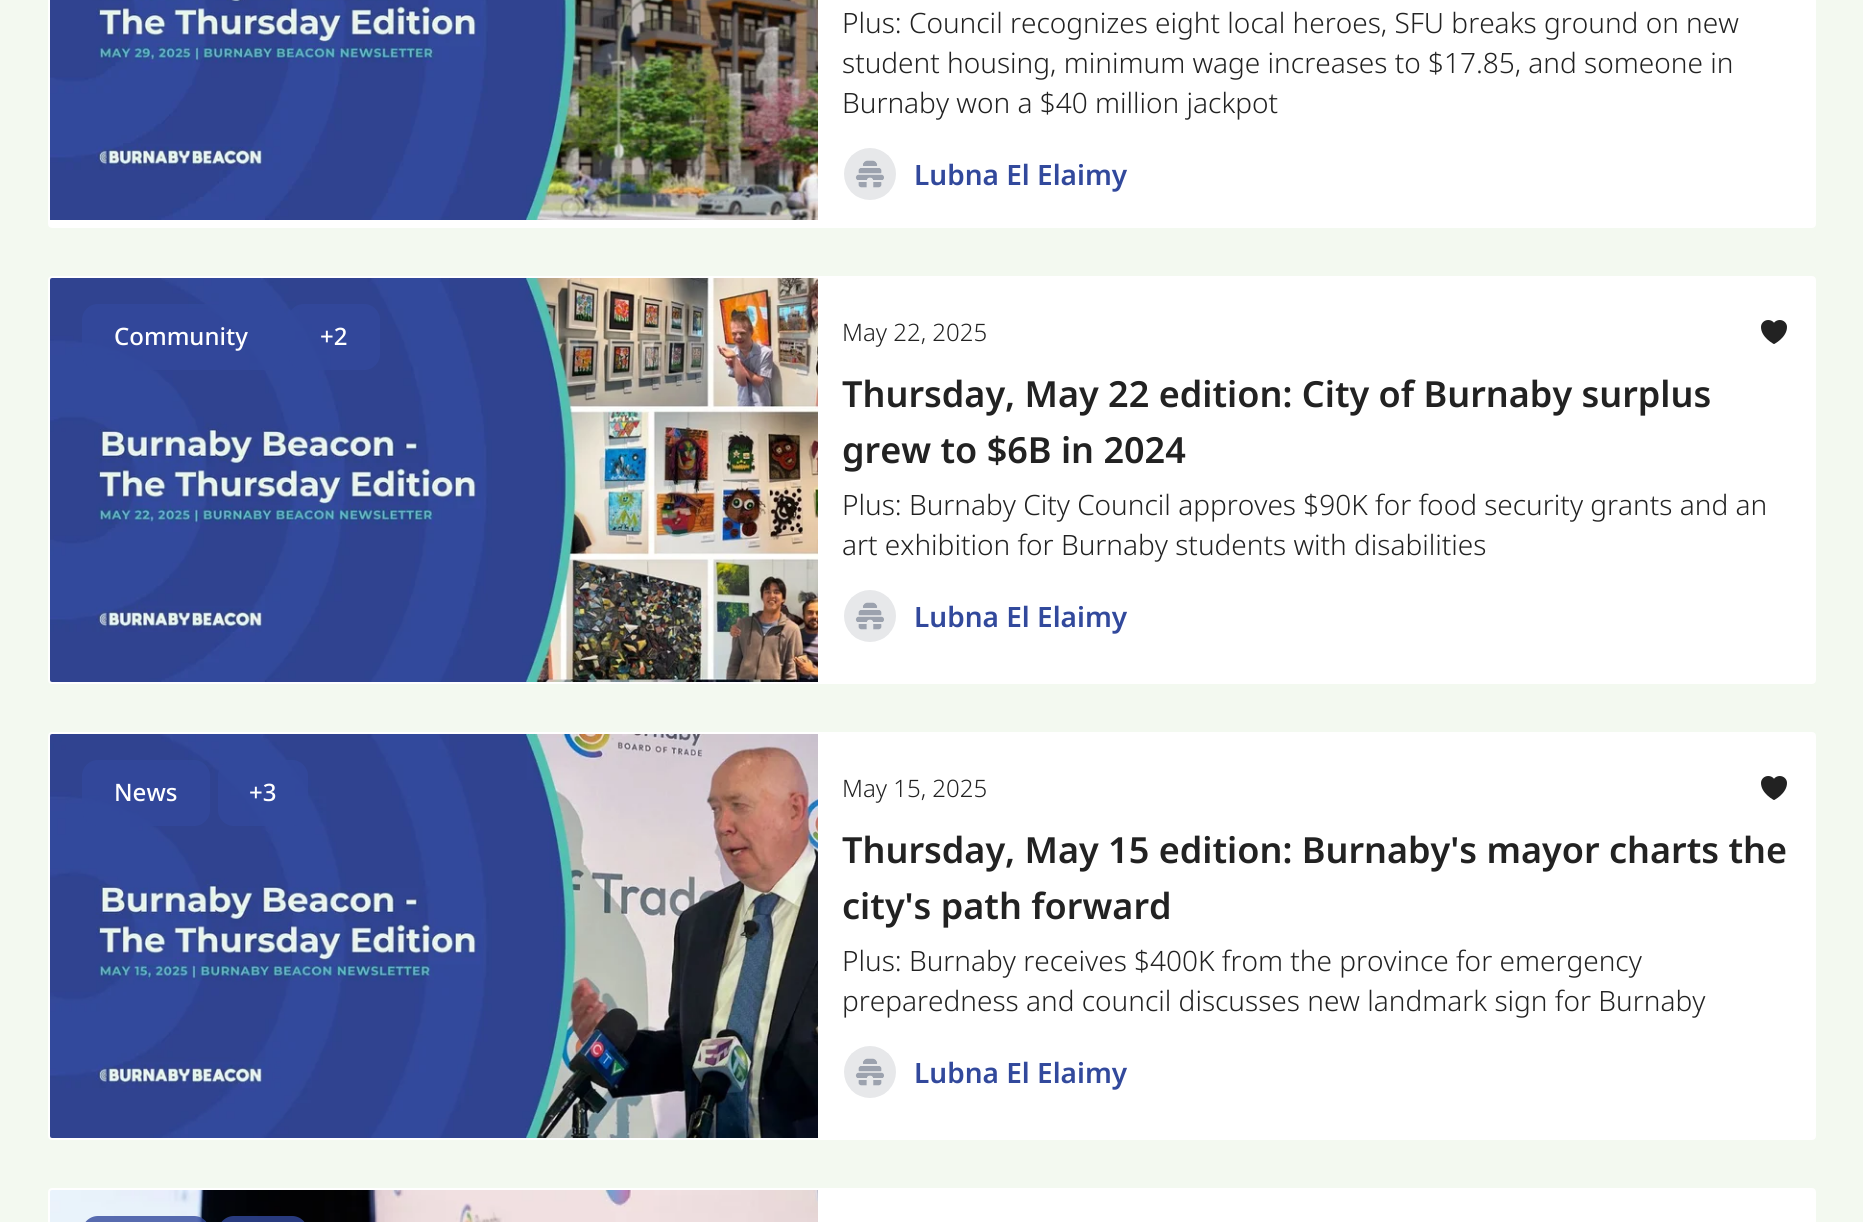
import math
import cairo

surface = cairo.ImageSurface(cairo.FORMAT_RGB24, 1863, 1222)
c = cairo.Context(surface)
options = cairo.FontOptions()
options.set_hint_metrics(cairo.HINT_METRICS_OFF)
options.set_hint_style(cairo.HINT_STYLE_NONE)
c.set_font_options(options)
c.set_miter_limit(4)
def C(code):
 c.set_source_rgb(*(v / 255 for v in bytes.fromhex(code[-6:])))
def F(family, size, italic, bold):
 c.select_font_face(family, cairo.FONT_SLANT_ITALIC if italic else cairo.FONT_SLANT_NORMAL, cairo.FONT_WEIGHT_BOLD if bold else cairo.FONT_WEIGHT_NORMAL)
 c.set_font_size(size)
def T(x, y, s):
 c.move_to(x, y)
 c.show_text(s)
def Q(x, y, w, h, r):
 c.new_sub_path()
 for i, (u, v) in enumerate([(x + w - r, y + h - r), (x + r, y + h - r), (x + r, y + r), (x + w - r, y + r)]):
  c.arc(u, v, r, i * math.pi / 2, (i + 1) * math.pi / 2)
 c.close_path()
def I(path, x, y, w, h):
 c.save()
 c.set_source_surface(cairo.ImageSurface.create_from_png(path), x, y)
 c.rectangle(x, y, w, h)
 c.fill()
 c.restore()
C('f3f9f0')
c.paint()
C('ffffff')
Q(49,-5,1766,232,3)
c.fill_preserve()
c.stroke()
I('1.png',50,0,768,220)
F('Noto Sans Light',28,0,0)
C('222222')
T(842,33,'Plus: Council recognizes eight local heroes, SFU breaks ground on new')
T(842,73,'student housing, minimum wage increases to $17.85, and someone in')
T(842,113,'Burnaby won a $40 million jackpot')
I('2.png',844,148,52,52)
F('Noto Sans SemiBold',28,0,0)
C('32499c')
T(914,185,'Lubna El Elaimy')
C('ffffff')
Q(49,277,1766,406,3)
c.fill_preserve()
c.stroke()
I('3.png',50,278,768,404)
c.set_source_rgba(0.196,0.286,0.612,0.8)
Q(82,304,198,66,16)
c.fill()
F('Noto Sans Medium',24,0,0)
C('ffffff')
T(114,345,'Community')
c.set_source_rgba(0.196,0.286,0.612,0.8)
Q(288,304,92,66,16)
c.fill()
C('ffffff')
T(320,345,'+2')
F('Noto Sans Light',24,0,0)
C('222222')
T(842,341,'May 22, 2025')
I('4.png',1761,320,26,24)
F('Noto Sans SemiBold',36,0,0)
T(842,407,'Thursday, May 22 edition: City of Burnaby surplus')
T(842,463,'grew to $6B in 2024')
F('Noto Sans Light',28,0,0)
T(842,515,'Plus: Burnaby City Council approves $90K for food security grants and an')
T(842,555,'art exhibition for Burnaby students with disabilities')
I('5.png',844,590,52,52)
F('Noto Sans SemiBold',28,0,0)
C('32499c')
T(914,627,'Lubna El Elaimy')
C('ffffff')
Q(49,733,1766,406,3)
c.fill_preserve()
c.stroke()
I('6.png',50,734,768,404)
c.set_source_rgba(0.196,0.286,0.612,0.8)
Q(82,760,128,66,16)
c.fill()
F('Noto Sans Medium',24,0,0)
C('ffffff')
T(114,801,'News')
c.set_source_rgba(0.196,0.286,0.612,0.8)
Q(218,760,90,66,16)
c.fill()
C('ffffff')
T(249,801,'+3')
F('Noto Sans Light',24,0,0)
C('222222')
T(842,797,'May 15, 2025')
I('4.png',1761,776,26,24)
F('Noto Sans SemiBold',36,0,0)
T(842,863,'Thursday, May 15 edition: Burnaby\'s mayor charts the')
T(842,919,'city\'s path forward')
F('Noto Sans Light',28,0,0)
T(842,971,'Plus: Burnaby receives $400K from the province for emergency')
T(842,1011,'preparedness and council discusses new landmark sign for Burnaby')
I('5.png',844,1046,52,52)
F('Noto Sans SemiBold',28,0,0)
C('32499c')
T(914,1083,'Lubna El Elaimy')
C('ffffff')
Q(49,1189,1766,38,3)
c.fill_preserve()
c.stroke()
I('7.png',50,1190,768,32)
c.set_source_rgba(0.196,0.286,0.612,0.8)
Q(82,1216,128,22,16)
c.fill()
Q(218,1216,90,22,16)
c.fill()
surface.write_to_png('o.png')
